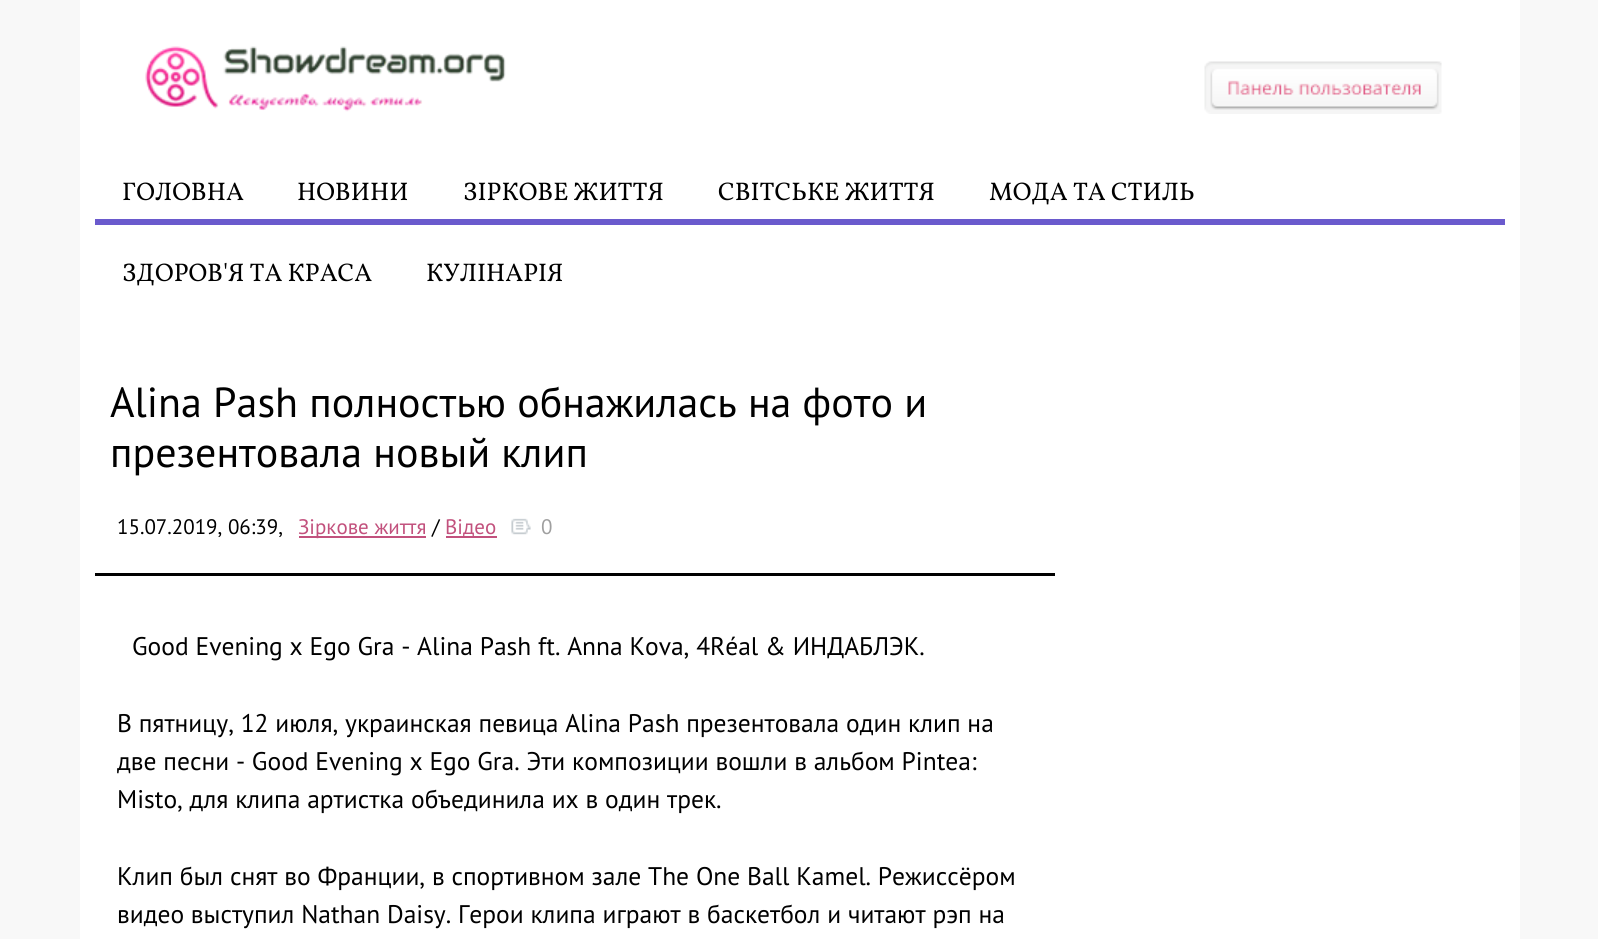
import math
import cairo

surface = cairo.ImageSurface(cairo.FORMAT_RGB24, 1598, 939)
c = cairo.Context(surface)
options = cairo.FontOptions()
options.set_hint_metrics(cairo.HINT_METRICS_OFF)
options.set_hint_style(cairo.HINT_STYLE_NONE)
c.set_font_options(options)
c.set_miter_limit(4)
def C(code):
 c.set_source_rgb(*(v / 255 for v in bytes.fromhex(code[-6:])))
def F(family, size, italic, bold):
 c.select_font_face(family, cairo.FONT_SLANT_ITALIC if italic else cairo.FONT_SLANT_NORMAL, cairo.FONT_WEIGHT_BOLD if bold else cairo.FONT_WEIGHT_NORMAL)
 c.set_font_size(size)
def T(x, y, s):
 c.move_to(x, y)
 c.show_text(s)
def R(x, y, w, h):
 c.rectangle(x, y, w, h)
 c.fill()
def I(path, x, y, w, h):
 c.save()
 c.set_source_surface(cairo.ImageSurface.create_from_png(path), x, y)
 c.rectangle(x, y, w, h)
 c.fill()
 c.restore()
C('f8f8f8')
c.paint()
C('ffffff')
R(80,0,1440,939)
I('1.png',145,46,361,66)
I('2.png',1204,61,238,53)
C('6a5acd')
R(95,219,1410,6)
F('Vollkorn',25.5,0,0)
C('000000')
T(122,200,'ГОЛОВНА')
T(297,200,'НОВИНИ')
T(463,200,'ЗІРКОВЕ ЖИТТЯ')
T(718,200,'СВІТСЬКЕ ЖИТТЯ')
T(989,200,'МОДА ТА СТИЛЬ')
T(122,281,'ЗДОРОВ\'Я ТА КРАСА')
T(426,281,'КУЛІНАРІЯ')
R(95,573,960,3)
F('PT Sans',42,0,0)
T(110,417,'Alina Pash полностью обнажилась на фото и')
T(110,467,'презентовала новый клип')
F('PT Sans',21,0,0)
T(117,534,'15.07.2019, 06:39,')
C('c2517d')
R(299,536,127,2)
T(298,534,'Зіркове життя')
C('000000')
T(432,534,'/')
C('c2517d')
R(446,536,51,2)
T(445,534,'Відео')
I('3.png',511,518,20,17)
C('9f9f9f')
T(541,534,'0')
F('PT Sans',25.5,0,0)
C('000000')
T(132,655,'Good Evening x Ego Gra - Alina Pash ft. Anna Kova, 4Réal & ИНДАБЛЭК.')
T(117,732,'В пятницу, 12 июля, украинская певица Alina Pash презентовала один клип на')
T(117,770,'две песни - Good Evening x Ego Gra. Эти композиции вошли в альбом Pintea:')
T(117,808,'Misto, для клипа артистка объединила их в один трек.')
T(117,885,'Клип был снят во Франции, в спортивном зале The One Ball Kamel. Режиссёром')
T(117,923,'видео выступил Nathan Daisy. Герои клипа играют в баскетбол и читают рэп на')
surface.write_to_png('o.png')
